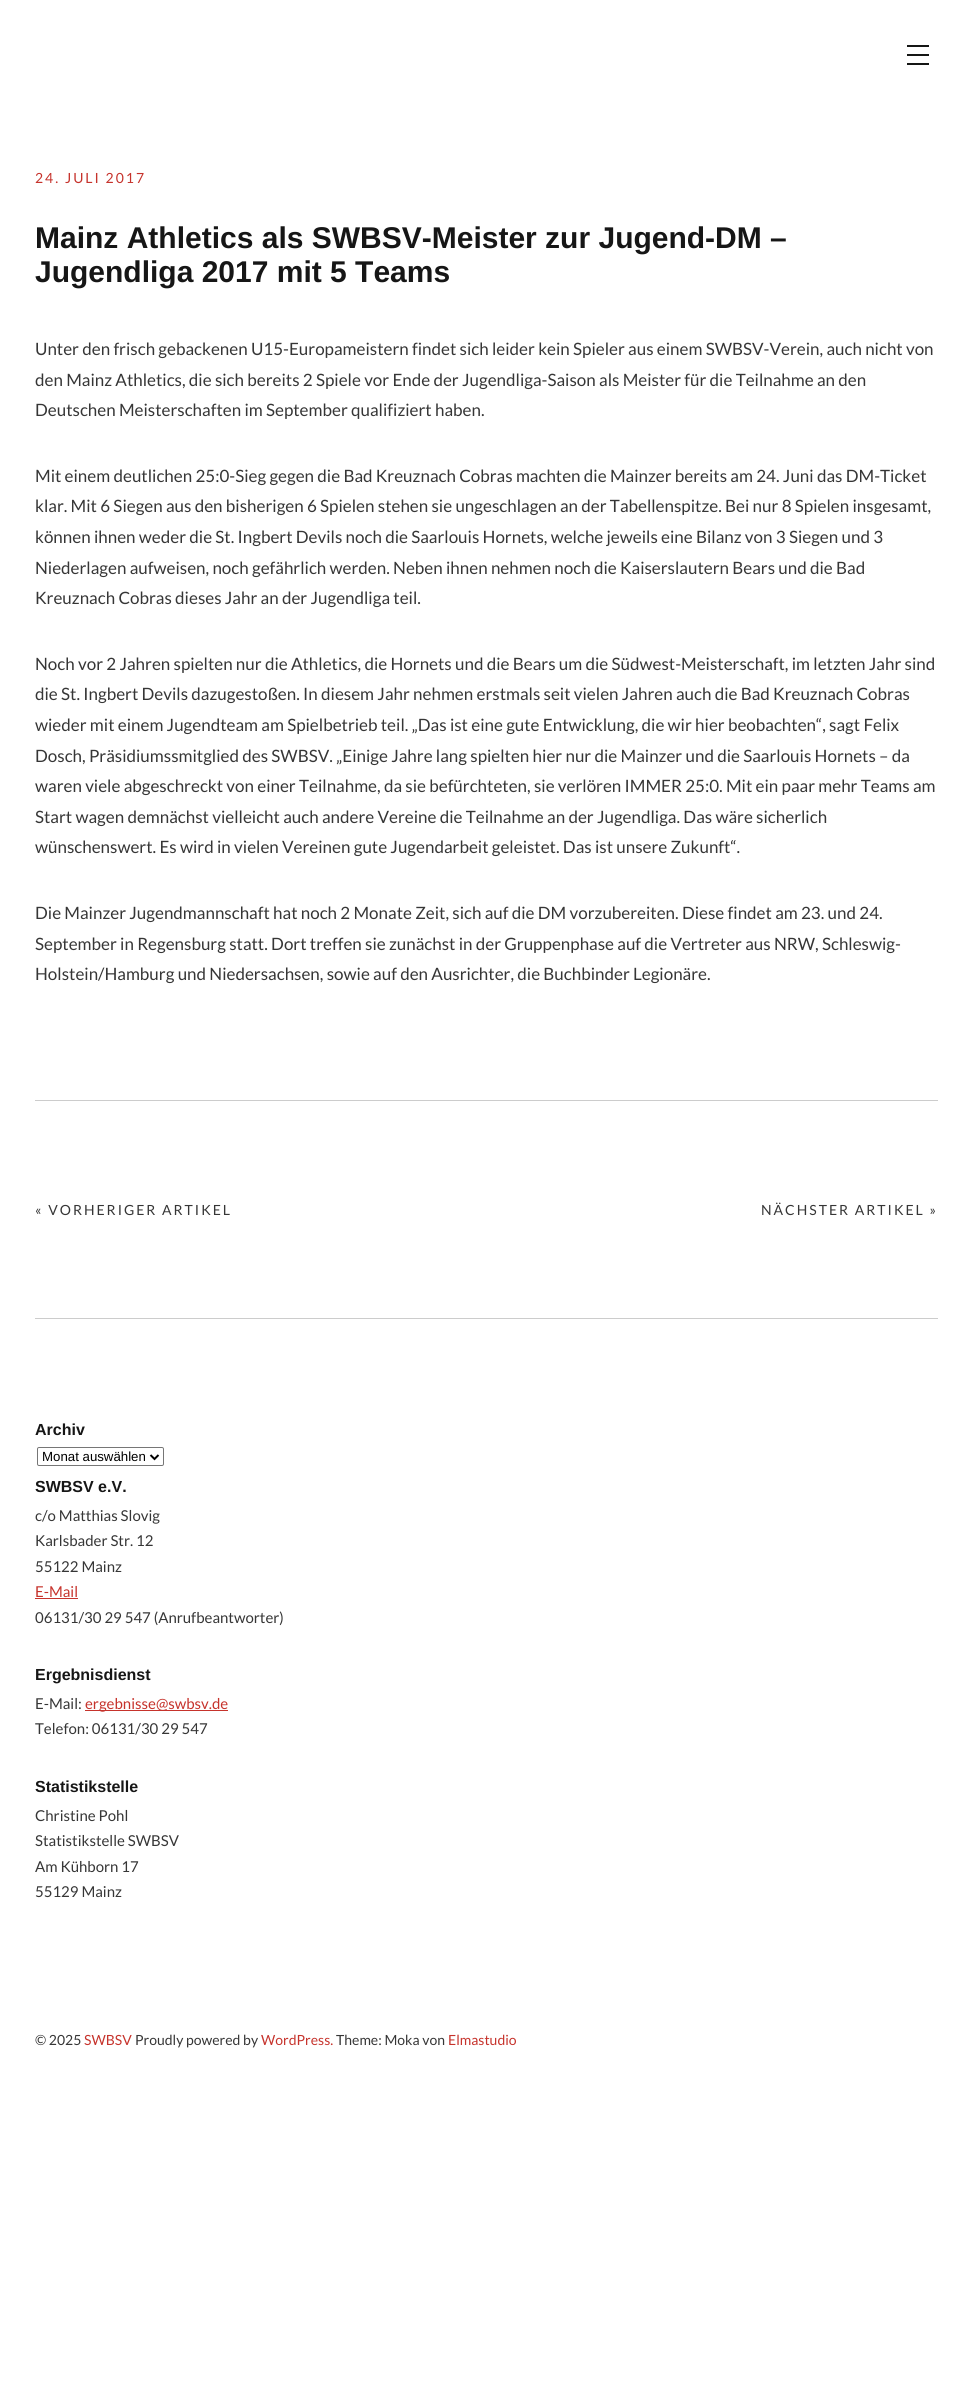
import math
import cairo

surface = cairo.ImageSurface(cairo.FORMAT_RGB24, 973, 2385)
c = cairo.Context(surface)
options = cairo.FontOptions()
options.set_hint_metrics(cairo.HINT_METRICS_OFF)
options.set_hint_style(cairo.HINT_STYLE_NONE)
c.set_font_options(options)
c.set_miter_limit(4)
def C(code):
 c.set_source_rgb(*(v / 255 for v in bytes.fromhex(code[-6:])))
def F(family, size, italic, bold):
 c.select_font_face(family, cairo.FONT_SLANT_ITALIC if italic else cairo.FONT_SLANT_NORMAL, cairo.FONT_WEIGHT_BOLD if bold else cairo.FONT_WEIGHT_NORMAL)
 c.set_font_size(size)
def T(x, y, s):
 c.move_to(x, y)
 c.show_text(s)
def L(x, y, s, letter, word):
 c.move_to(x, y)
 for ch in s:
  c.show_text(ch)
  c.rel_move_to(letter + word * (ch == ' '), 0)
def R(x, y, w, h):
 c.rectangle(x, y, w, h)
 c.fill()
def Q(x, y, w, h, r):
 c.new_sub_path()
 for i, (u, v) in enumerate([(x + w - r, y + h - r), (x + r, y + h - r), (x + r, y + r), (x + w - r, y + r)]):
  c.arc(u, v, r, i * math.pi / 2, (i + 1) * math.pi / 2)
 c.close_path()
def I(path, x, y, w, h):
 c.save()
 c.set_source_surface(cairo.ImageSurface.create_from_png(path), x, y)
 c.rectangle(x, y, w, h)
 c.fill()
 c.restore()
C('ffffff')
c.paint()
I('1.png',907,45,22,20)
F('Lato',14,0,0)
C('c6332c')
L(35,183,'24. JULI 2017',2,0)
F('Liberation Sans',30,0,1)
C('161616')
T(35,248,'Mainz Athletics als SWBSV-Meister zur Jugend-DM –')
T(35,282,'Jugendliga 2017 mit 5 Teams')
F('Lato',17,0,0)
C('363636')
T(35,355,'Unter den frisch gebackenen U15-Europameistern findet sich leider kein Spieler aus einem SWBSV-Verein, auch nicht von')
T(35,386,'den Mainz Athletics, die sich bereits 2 Spiele vor Ende der Jugendliga-Saison als Meister für die Teilnahme an den')
T(35,416,'Deutschen Meisterschaften im September qualifiziert haben.')
T(35,482,'Mit einem deutlichen 25:0-Sieg gegen die Bad Kreuznach Cobras machten die Mainzer bereits am 24. Juni das DM-Ticket')
T(35,512,'klar. Mit 6 Siegen aus den bisherigen 6 Spielen stehen sie ungeschlagen an der Tabellenspitze. Bei nur 8 Spielen insgesamt,')
T(35,543,'können ihnen weder die St. Ingbert Devils noch die Saarlouis Hornets, welche jeweils eine Bilanz von 3 Siegen und 3')
T(35,574,'Niederlagen aufweisen, noch gefährlich werden. Neben ihnen nehmen noch die Kaiserslautern Bears und die Bad')
T(35,604,'Kreuznach Cobras dieses Jahr an der Jugendliga teil.')
T(35,670,'Noch vor 2 Jahren spielten nur die Athletics, die Hornets und die Bears um die Südwest-Meisterschaft, im letzten Jahr sind')
T(35,700,'die St. Ingbert Devils dazugestoßen. In diesem Jahr nehmen erstmals seit vielen Jahren auch die Bad Kreuznach Cobras')
T(35,731,'wieder mit einem Jugendteam am Spielbetrieb teil. „Das ist eine gute Entwicklung, die wir hier beobachten“, sagt Felix')
T(35,762,'Dosch, Präsidiumssmitglied des SWBSV. „Einige Jahre lang spielten hier nur die Mainzer und die Saarlouis Hornets – da')
T(35,792,'waren viele abgeschreckt von einer Teilnahme, da sie befürchteten, sie verlören IMMER 25:0. Mit ein paar mehr Teams am')
T(35,823,'Start wagen demnächst vielleicht auch andere Vereine die Teilnahme an der Jugendliga. Das wäre sicherlich')
T(35,853,'wünschenswert. Es wird in vielen Vereinen gute Jugendarbeit geleistet. Das ist unsere Zukunft“.')
T(35,919,'Die Mainzer Jugendmannschaft hat noch 2 Monate Zeit, sich auf die DM vorzubereiten. Diese findet am 23. und 24.')
T(35,950,'September in Regensburg statt. Dort treffen sie zunächst in der Gruppenphase auf die Vertreter aus NRW, Schleswig-')
T(35,980,'Holstein/Hamburg und Niedersachsen, sowie auf den Ausrichter, die Buchbinder Legionäre.')
C('cccccc')
R(35,1100,903,1)
F('Lato',14,0,0)
C('363636')
L(35,1215,'« VORHERIGER ARTIKEL',2,0)
L(761,1215,'NÄCHSTER ARTIKEL »',2,0)
C('cccccc')
R(35,1318,903,1)
F('Liberation Sans',16,0,1)
C('161616')
T(35,1435,'Archiv')
Q(37.5,1447.5,126,18,1.5)
C('767676')
c.set_line_width(1)
c.stroke()
c.new_path()
c.move_to(150.5,1455)
c.line_to(154.5,1459)
c.line_to(158.5,1455)
C('000000')
c.set_line_width(2)
c.stroke()
F('Liberation Sans',13.25,0,0)
T(42,1461,'Monat auswählen')
F('Liberation Sans',16,0,1)
C('161616')
T(35,1492,'SWBSV e.V.')
F('Lato',15,0,0)
C('363636')
T(35,1521,'c/o Matthias Slovig')
T(35,1546,'Karlsbader Str. 12')
T(35,1572,'55122 Mainz')
C('c6332c')
T(35,1597,'E-Mail')
R(35,1598,43,1)
C('363636')
T(35,1623,'06131/30 29 547 (Anrufbeantworter)')
F('Liberation Sans',16,0,1)
C('161616')
T(35,1680,'Ergebnisdienst')
F('Lato',15,0,0)
C('363636')
T(35,1709,'E-Mail:')
C('c6332c')
R(85,1710,143,1)
T(85,1709,'ergebnisse@swbsv.de')
C('363636')
T(35,1734,'Telefon: 06131/30 29 547')
F('Liberation Sans',16,0,1)
C('161616')
T(35,1792,'Statistikstelle')
F('Lato',15,0,0)
C('363636')
T(35,1821,'Christine Pohl')
T(35,1846,'Statistikstelle SWBSV')
T(35,1872,'Am Kühborn 17')
T(35,1897,'55129 Mainz')
F('Lato',14,0,0)
T(35,2045,'© 2025')
C('c6332c')
T(84,2045,'SWBSV')
C('363636')
T(135,2045,'Proudly powered by')
C('c6332c')
T(261,2045,'WordPress.')
C('363636')
T(336,2045,'Theme: Moka von')
C('c6332c')
T(448,2045,'Elmastudio')
surface.write_to_png('o.png')
